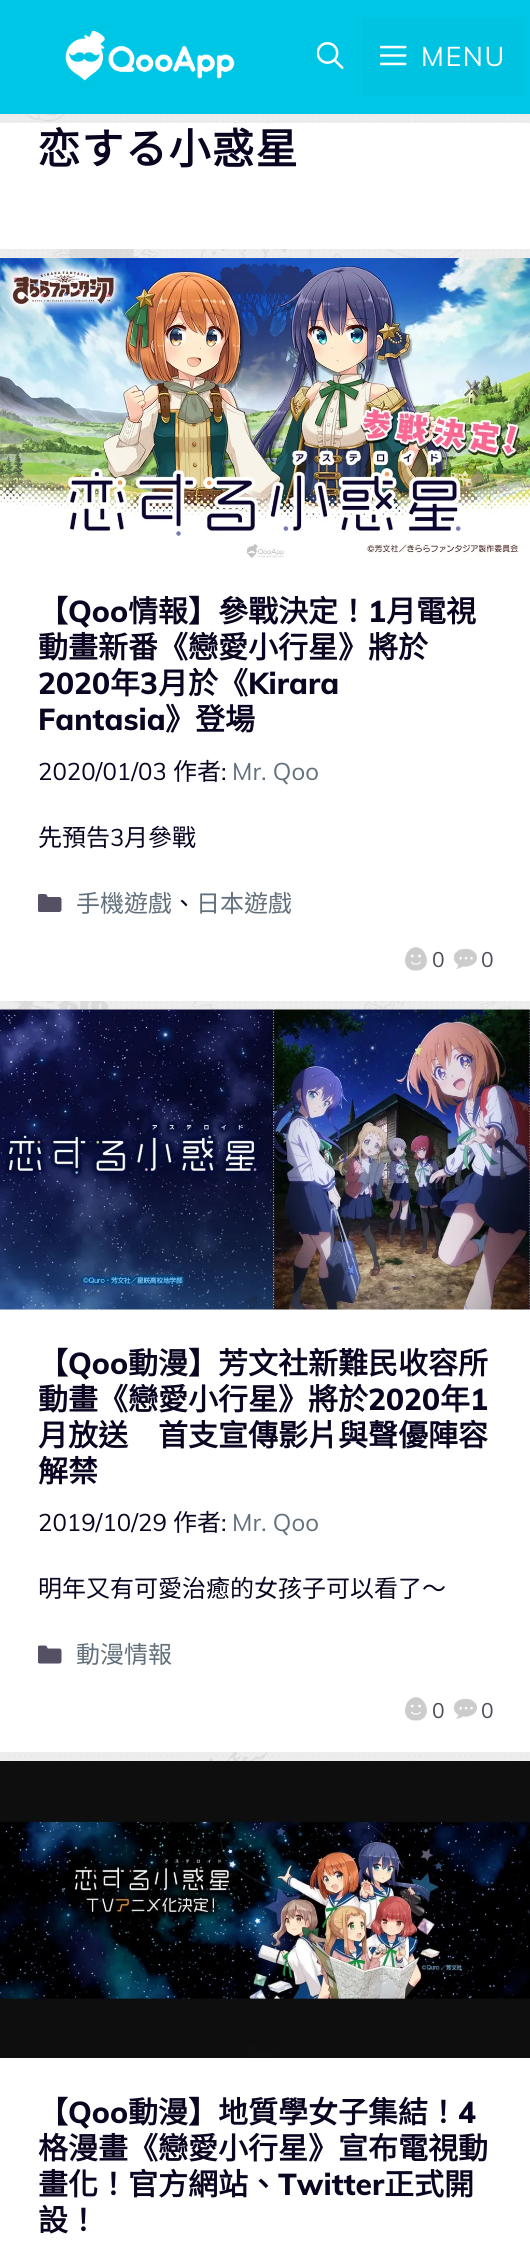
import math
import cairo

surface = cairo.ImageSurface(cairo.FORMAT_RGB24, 530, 2246)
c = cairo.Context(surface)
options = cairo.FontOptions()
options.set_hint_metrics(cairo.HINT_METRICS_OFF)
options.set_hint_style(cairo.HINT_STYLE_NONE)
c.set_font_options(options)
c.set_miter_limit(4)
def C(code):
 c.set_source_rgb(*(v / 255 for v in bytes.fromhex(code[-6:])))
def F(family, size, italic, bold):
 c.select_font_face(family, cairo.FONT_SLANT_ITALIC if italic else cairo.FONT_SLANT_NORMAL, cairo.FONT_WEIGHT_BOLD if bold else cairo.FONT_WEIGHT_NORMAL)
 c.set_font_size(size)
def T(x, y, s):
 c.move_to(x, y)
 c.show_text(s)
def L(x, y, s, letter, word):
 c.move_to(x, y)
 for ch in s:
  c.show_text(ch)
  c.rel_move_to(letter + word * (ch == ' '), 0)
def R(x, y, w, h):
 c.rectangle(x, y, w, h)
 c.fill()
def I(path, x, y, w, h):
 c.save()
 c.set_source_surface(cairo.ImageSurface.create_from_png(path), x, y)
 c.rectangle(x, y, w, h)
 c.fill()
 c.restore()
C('ffffff')
c.paint()
I('1.png',0,114,530,1647)
C('00c6e6')
R(0,0,530,114)
I('2.png',65,30,170,51)
I('3.png',317,42,27,27)
C('00c2e1')
R(362,18,162,78)
I('4.png',380,45,27,21)
F('Muli',27,0,0)
C('ffffff')
L(421,66,'MENU',1.5,0)
R(0,123,530,126)
F('Noto Sans CJK TC',42,0,1)
C('0b0521')
L(38,164,'恋する小惑星',1.5,0)
C('ffffff')
R(0,558,530,443)
I('5.png',0,258,530,300)
F('Noto Sans CJK TC',30,0,1)
C('0b0521')
T(38,622,'【')
F('Muli ExtraBold',30,0,0)
T(68,622,'Qoo')
F('Noto Sans CJK TC',30,0,1)
T(128,622,'情報】參戰決定！')
F('Muli ExtraBold',30,0,0)
T(368,622,'1')
F('Noto Sans CJK TC',30,0,1)
T(386,622,'月電視')
T(38,658,'動畫新番《戀愛小行星》將於')
F('Muli ExtraBold',30,0,0)
T(38,694,'2020')
F('Noto Sans CJK TC',30,0,1)
T(110,694,'年')
F('Muli ExtraBold',30,0,0)
T(140,694,'3')
F('Noto Sans CJK TC',30,0,1)
T(158,694,'月於《')
F('Muli ExtraBold',30,0,0)
T(248,694,'Kirara')
T(38,730,'Fantasia')
F('Noto Sans CJK TC',30,0,1)
T(165,730,'》登場')
F('Muli',24,0,0)
T(38,780,'2020/01/03')
F('Noto Sans CJK TC',24,0,0)
T(173,780,'作者')
F('Muli',24,0,0)
T(221,780,':')
C('62707c')
T(232,780,'Mr. Qoo')
I('6.png',405,947,22,24)
F('Muli',21,0,0)
C('4c4c5c')
T(432,967,'0')
I('7.png',453,948,24,21)
T(481,967,'0')
F('Noto Sans CJK TC',24,0,0)
C('0b0521')
T(38,846,'先預告')
F('Muli',24,0,0)
T(110,846,'3')
F('Noto Sans CJK TC',24,0,0)
T(124,846,'月參戰')
I('8.png',38,894,24,18)
C('62707c')
T(76,912,'手機遊戲')
C('0b0521')
T(172,912,'、')
C('62707c')
T(196,912,'日本遊戲')
C('ffffff')
R(0,1309,530,443)
I('9.png',0,1009,530,301)
F('Noto Sans CJK TC',30,0,1)
C('0b0521')
T(38,1374,'【')
F('Muli ExtraBold',30,0,0)
T(68,1374,'Qoo')
F('Noto Sans CJK TC',30,0,1)
T(128,1374,'動漫】芳文社新難民收容所')
T(38,1410,'動畫《戀愛小行星》將於')
F('Muli ExtraBold',30,0,0)
T(368,1410,'2020')
F('Noto Sans CJK TC',30,0,1)
T(440,1410,'年')
F('Muli ExtraBold',30,0,0)
T(470,1410,'1')
F('Noto Sans CJK TC',30,0,1)
T(38,1446,'月放送　首支宣傳影片與聲優陣容')
T(38,1482,'解禁')
F('Muli',24,0,0)
T(38,1531,'2019/10/29')
F('Noto Sans CJK TC',24,0,0)
T(173,1531,'作者')
F('Muli',24,0,0)
T(221,1531,':')
C('62707c')
T(232,1531,'Mr. Qoo')
I('6.png',405,1697,22,24)
F('Muli',21,0,0)
C('4c4c5c')
T(432,1718,'0')
I('7.png',453,1698,24,21)
T(481,1718,'0')
F('Noto Sans CJK TC',24,0,0)
C('0b0521')
T(38,1597,'明年又有可愛治癒的女孩子可以看了～')
I('10.png',38,1645,24,19)
C('62707c')
T(76,1663,'動漫情報')
I('11.png',0,1761,530,297)
F('Noto Sans CJK TC',30,0,1)
C('0b0521')
T(38,2123,'【')
F('Muli ExtraBold',30,0,0)
T(68,2123,'Qoo')
F('Noto Sans CJK TC',30,0,1)
T(128,2123,'動漫】地質學女子集結！')
F('Muli ExtraBold',30,0,0)
T(458,2123,'4')
F('Noto Sans CJK TC',30,0,1)
T(38,2159,'格漫畫《戀愛小行星》宣布電視動')
T(38,2195,'畫化！官方網站、')
F('Muli ExtraBold',30,0,0)
T(278,2195,'Twitter')
F('Noto Sans CJK TC',30,0,1)
T(384,2195,'正式開')
T(38,2231,'設！')
surface.write_to_png('o.png')
